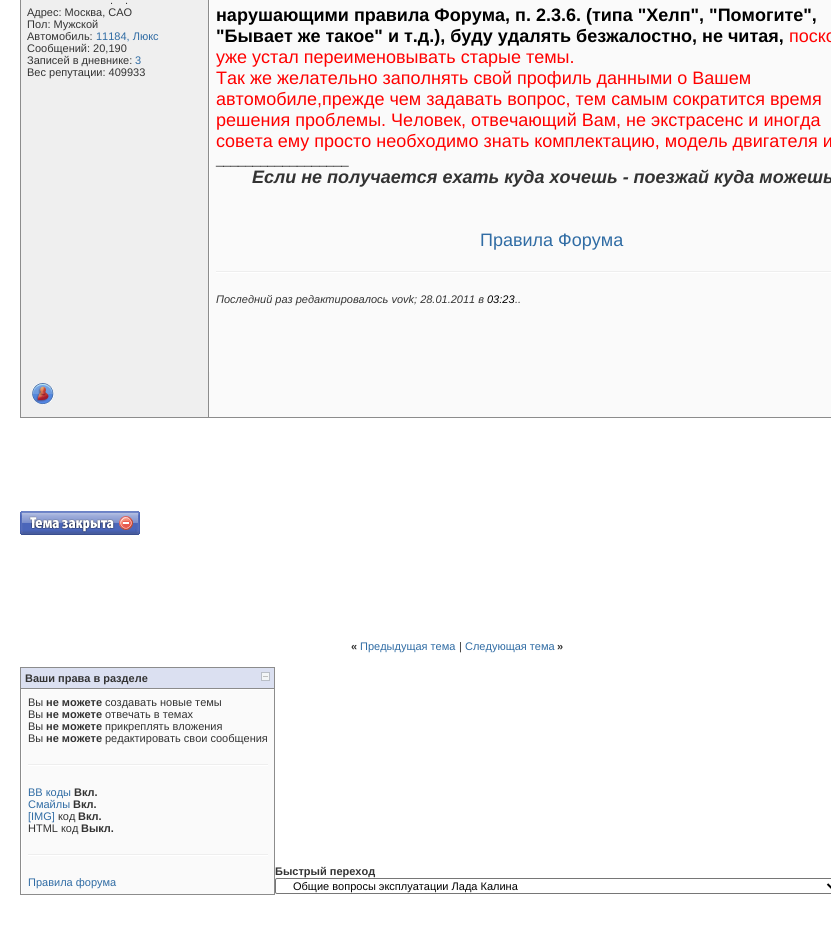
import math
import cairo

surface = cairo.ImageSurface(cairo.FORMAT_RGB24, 831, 947)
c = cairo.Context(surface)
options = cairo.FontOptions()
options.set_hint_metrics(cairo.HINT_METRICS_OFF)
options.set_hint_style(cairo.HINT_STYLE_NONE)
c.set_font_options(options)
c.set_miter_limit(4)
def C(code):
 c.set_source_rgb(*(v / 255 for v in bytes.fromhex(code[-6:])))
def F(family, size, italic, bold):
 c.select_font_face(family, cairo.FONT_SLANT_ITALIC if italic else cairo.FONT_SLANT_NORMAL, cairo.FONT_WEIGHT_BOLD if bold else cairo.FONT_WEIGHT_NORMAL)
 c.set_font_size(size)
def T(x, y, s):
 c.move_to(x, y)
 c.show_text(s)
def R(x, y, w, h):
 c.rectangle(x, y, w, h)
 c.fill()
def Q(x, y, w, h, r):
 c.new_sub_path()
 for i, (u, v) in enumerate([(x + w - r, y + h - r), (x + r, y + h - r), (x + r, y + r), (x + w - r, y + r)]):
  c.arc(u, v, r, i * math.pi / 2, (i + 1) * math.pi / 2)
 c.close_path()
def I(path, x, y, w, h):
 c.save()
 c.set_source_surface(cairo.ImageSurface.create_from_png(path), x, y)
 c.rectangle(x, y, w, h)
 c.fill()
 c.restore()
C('ffffff')
c.paint()
C('efefef')
R(21,0,187,417)
C('8c8c8c')
R(208,0,1,418)
R(20,0,1,372)
F('Liberation Sans',11,0,0)
C('333333')
T(110,4,'.')
T(125,4,'.')
T(27,16,'Адрес: Москва, САО')
T(27,28,'Пол: Мужской')
T(27,40,'Автомобиль:')
C('306ca4')
T(96,40,'11184, Люкс')
C('333333')
T(27,52,'Сообщений: 20,190')
T(27,64,'Записей в дневнике:')
C('306ca4')
T(135,64,'3')
C('333333')
T(27,76,'Вес репутации: 409933')
C('fafafa')
R(210,0,621,372)
F('Liberation Sans',18,0,1)
C('000000')
T(216,21,'нарушающими правила Форума, п. 2.3.6. (типа "Хелп", "Помогите",')
T(216,42,'"Бывает же такое" и т.д.), буду удалять безжалостно, не читая,')
F('Liberation Sans',18,0,0)
C('ff0000')
T(789,42,'поско')
T(216,63,'уже устал переименовывать старые темы.')
T(216,84,'Так же желательно заполнять свой профиль данными о Вашем')
T(216,105,'автомобиле,прежде чем задавать вопрос, тем самым сократится время')
T(216,126,'решения проблемы. Человек, отвечающий Вам, не экстрасенс и иногда')
T(216,147,'совета ему просто необходимо знать комплектацию, модель двигателя и')
F('Liberation Sans',13.25,0,0)
C('333333')
T(216,164,'__________________')
F('Liberation Sans',18,1,1)
T(252,183,'Если не получается ехать куда хочешь - поезжай куда можешь')
F('Liberation Sans',18,0,0)
C('306ca4')
T(480,246,'Правила Форума')
C('eeeeee')
R(216,271,615,1)
C('ffffff')
R(216,272,615,1)
F('Liberation Sans',11,1,0)
C('333333')
T(216,303,'Последний раз редактировалось vovk; 28.01.2011 в')
C('000000')
T(487,303,'03:23')
C('333333')
T(515,303,'..')
C('8c8c8c')
R(20,417,811,1)
R(20,372,1,46)
I('1.png',32,383,22,22)
C('fafafa')
R(209,372,622,45)
I('2.png',20,511,120,24)
F('Liberation Sans',11,0,1)
C('333333')
T(351,650,'«')
F('Liberation Sans',11,0,0)
C('306ca4')
T(360,650,'Предыдущая тема')
C('333333')
T(459,650,'|')
C('306ca4')
T(465,650,'Следующая тема')
F('Liberation Sans',11,0,1)
C('333333')
T(557,650,'»')
C('8c8c8c')
R(20,667,255,228)
C('dbe0f1')
R(21,668,253,20)
C('333333')
T(25,682,'Ваши права в разделе')
I('3.png',261,672,9,9)
C('fafafa')
R(22,690,252,204)
C('ffffff')
R(21,689,253,1)
R(21,689,1,205)
F('Liberation Sans',11,0,0)
C('333333')
T(28,706,'Вы')
F('Liberation Sans',11,0,1)
T(46,706,'не можете')
F('Liberation Sans',11,0,0)
T(105,706,'создавать новые темы')
T(28,718,'Вы')
F('Liberation Sans',11,0,1)
T(46,718,'не можете')
F('Liberation Sans',11,0,0)
T(105,718,'отвечать в темах')
T(28,730,'Вы')
F('Liberation Sans',11,0,1)
T(46,730,'не можете')
F('Liberation Sans',11,0,0)
T(105,730,'прикреплять вложения')
T(28,742,'Вы')
F('Liberation Sans',11,0,1)
T(46,742,'не можете')
F('Liberation Sans',11,0,0)
T(105,742,'редактировать свои сообщения')
C('eeeeee')
R(28,764,240,1)
C('ffffff')
R(28,765,240,1)
C('306ca4')
T(28,796,'BB коды')
F('Liberation Sans',11,0,1)
C('333333')
T(74,796,'Вкл.')
F('Liberation Sans',11,0,0)
C('306ca4')
T(28,808,'Смайлы')
F('Liberation Sans',11,0,1)
C('333333')
T(73,808,'Вкл.')
F('Liberation Sans',11,0,0)
C('306ca4')
T(28,820,'[IMG]')
C('333333')
T(58,820,'код')
F('Liberation Sans',11,0,1)
T(78,820,'Вкл.')
F('Liberation Sans',11,0,0)
T(28,832,'HTML код')
F('Liberation Sans',11,0,1)
T(81,832,'Выкл.')
C('eeeeee')
R(28,854,240,1)
C('ffffff')
R(28,855,240,1)
F('Liberation Sans',11,0,0)
C('306ca4')
T(28,886,'Правила форума')
F('Liberation Sans',11,0,1)
C('333333')
T(275,875,'Быстрый переход')
Q(275.5,878.5,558,15,1.5)
C('767676')
c.set_line_width(1)
c.stroke()
c.new_path()
c.move_to(827.5,884)
c.line_to(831.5,888)
c.line_to(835.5,884)
C('000000')
c.set_line_width(2)
c.stroke()
F('Liberation Sans',11,0,0)
T(293,890,'Общие вопросы эксплуатации Лада Калина')
surface.write_to_png('o.png')
